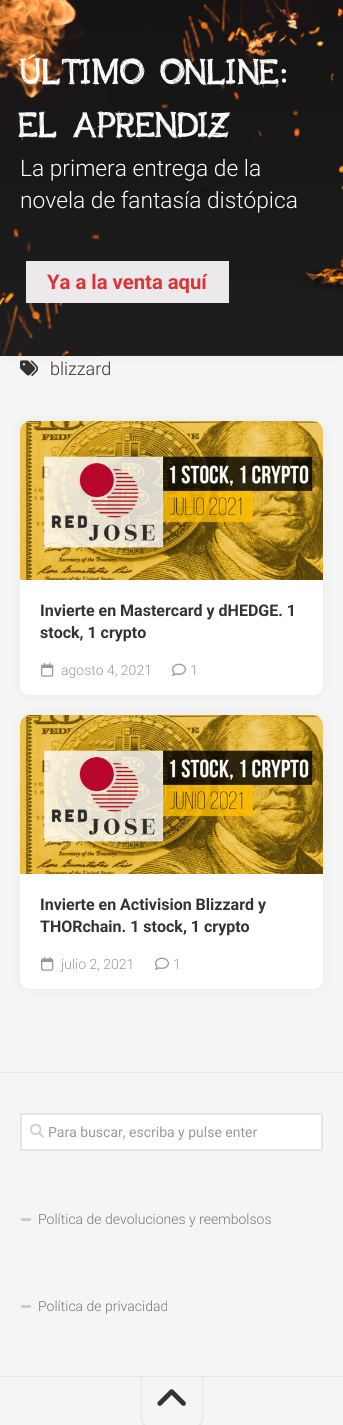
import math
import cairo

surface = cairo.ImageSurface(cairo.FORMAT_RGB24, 343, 1425)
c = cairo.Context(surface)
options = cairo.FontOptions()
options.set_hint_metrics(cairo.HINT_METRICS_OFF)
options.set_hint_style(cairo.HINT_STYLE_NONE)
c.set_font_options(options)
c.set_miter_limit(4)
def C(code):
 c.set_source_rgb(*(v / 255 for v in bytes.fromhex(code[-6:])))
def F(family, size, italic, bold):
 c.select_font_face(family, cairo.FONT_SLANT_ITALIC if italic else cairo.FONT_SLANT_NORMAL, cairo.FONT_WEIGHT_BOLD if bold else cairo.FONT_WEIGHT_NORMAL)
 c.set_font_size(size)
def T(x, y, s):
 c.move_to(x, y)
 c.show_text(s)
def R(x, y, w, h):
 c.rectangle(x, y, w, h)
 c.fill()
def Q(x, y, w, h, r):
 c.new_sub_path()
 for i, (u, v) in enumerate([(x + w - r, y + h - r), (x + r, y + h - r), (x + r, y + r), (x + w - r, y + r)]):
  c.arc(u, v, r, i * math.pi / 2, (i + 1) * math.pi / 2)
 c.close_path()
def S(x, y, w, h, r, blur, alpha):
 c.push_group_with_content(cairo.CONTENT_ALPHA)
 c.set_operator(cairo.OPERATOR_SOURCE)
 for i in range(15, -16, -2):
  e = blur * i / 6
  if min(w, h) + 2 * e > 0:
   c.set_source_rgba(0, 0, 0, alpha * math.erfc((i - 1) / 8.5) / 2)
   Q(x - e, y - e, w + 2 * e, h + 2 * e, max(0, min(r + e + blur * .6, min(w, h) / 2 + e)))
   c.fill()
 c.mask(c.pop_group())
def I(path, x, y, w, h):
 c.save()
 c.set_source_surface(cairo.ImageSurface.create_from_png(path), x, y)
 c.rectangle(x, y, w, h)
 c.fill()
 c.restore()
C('f5f5f5')
c.paint()
I('2.png',20,360,18,17)
C('000000')
S(0,-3,343,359,0,5,.05)
I('1.png',0,0,343,356)
F('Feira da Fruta',35.75,0,0)
C('ffffff')
T(20,84,'ÚLTIMO ONLINE:')
T(20,137,'EL APRENDIZ')
F('Roboto Light',22.75,0,0)
T(20,176,'La primera entrega de la')
T(20,208,'novela de fantasía distópica')
C('ebe9eb')
R(26,261,203,42)
F('Roboto',20.25,0,1)
C('dd3333')
T(47,289,'Ya a la venta aquí')
F('Roboto Light',18,0,0)
C('333333')
T(50,375,'blizzard')
C('000000')
S(20,421,303,274,10,5,.05)
C('ffffff')
Q(20,421,303,274,10)
c.fill()
I('3.png',20,421,303,159)
F('Roboto',16,0,1)
C('333333')
T(40,616,'Invierte en Mastercard y dHEDGE. 1')
T(40,638,'stock, 1 crypto')
I('4.png',41,662,13,15)
F('Roboto Light',14,0,0)
C('999999')
T(61,675,'agosto 4, 2021')
I('5.png',172,663,14,13)
T(190,675,'1')
C('000000')
S(20,715,303,274,10,5,.05)
C('ffffff')
Q(20,715,303,274,10)
c.fill()
I('6.png',20,715,303,159)
F('Roboto',16,0,1)
C('333333')
T(40,910,'Invierte en Activision Blizzard y')
T(40,932,'THORchain. 1 stock, 1 crypto')
I('4.png',41,956,13,15)
F('Roboto Light',14,0,0)
C('999999')
T(61,969,'julio 2, 2021')
I('5.png',155,957,14,13)
T(173,969,'1')
C('e5e5e5')
R(0,1072,343,1)
R(0,1376,343,1)
C('ffffff')
c.rectangle(21,1114,301,36)
c.fill_preserve()
C('e5e5e5')
c.stroke()
I('7.png',30,1123,14,15)
F('Roboto',14,0,0)
C('999999')
T(48,1137,'Para buscar, escriba y pulse enter')
C('cccccc')
R(21,1218,10,3)
F('Roboto Light',14,0,0)
C('777777')
T(38,1224,'Política de devoluciones y reembolsos')
C('cccccc')
R(21,1305,10,3)
C('777777')
T(38,1311,'Política de privacidad')
C('e5e5e5')
c.set_fill_rule(cairo.FILL_RULE_EVEN_ODD)
c.new_path()
c.move_to(141,1377)
c.line_to(203,1377)
c.line_to(203,1418)
c.curve_to(203,1424,199,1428,193,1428)
c.line_to(151,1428)
c.curve_to(145,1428,141,1424,141,1418)
c.close_path()
c.move_to(142,1377)
c.line_to(202,1377)
c.line_to(202,1418)
c.curve_to(202,1423,198,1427,193,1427)
c.line_to(151,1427)
c.curve_to(146,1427,142,1423,142,1418)
c.close_path()
c.fill()
I('8.png',157,1389,29,17)
surface.write_to_png('o.png')
